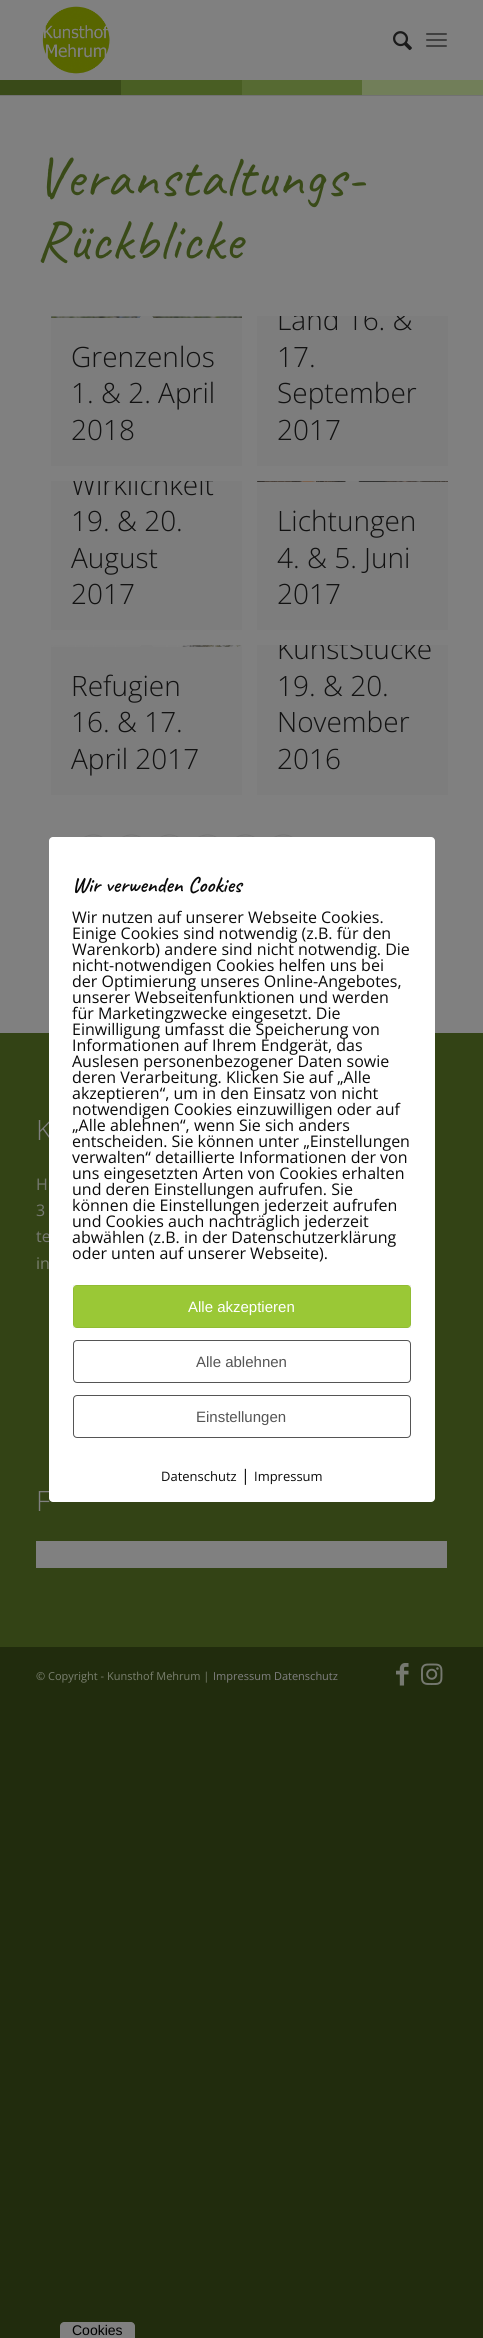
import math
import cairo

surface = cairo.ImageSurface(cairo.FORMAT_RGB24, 483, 2338)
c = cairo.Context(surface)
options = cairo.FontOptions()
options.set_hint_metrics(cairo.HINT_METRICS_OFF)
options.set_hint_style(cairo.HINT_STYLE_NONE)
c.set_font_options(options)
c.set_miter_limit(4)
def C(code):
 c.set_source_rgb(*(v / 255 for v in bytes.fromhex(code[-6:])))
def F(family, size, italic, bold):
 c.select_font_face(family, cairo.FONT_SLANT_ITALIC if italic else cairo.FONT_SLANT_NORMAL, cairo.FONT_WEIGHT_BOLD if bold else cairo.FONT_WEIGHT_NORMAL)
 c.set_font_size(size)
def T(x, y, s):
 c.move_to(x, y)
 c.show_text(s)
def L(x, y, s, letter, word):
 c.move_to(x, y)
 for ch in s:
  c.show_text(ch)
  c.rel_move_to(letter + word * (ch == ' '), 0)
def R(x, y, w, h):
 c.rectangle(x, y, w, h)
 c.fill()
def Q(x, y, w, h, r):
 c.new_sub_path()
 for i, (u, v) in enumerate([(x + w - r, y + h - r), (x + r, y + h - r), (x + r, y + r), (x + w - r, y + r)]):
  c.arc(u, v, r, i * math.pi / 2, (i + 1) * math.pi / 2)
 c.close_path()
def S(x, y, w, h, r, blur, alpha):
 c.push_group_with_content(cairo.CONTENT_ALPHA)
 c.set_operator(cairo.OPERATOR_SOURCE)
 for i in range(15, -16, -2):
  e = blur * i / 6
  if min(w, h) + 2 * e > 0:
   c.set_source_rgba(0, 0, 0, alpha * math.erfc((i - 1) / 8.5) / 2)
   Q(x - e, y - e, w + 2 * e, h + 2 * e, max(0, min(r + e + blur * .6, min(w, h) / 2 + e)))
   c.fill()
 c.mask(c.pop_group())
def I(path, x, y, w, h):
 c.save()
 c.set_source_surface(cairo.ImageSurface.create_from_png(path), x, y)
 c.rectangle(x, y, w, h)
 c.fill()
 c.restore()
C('212c0d')
c.paint()
C('808080')
R(0,0,483,80)
I('1.png',42,6,68,68)
I('2.png',393,31,19,20)
C('404040')
Q(426,39,21,2,1)
c.fill()
Q(426,33,21,2,1)
c.fill()
Q(426,45,21,2,1)
c.fill()
C('808080')
R(0,96,483,937)
C('394a18')
R(0,80,121,15)
C('495e23')
R(121,80,121,15)
C('566a32')
R(242,80,120,15)
C('717e59')
R(362,80,121,15)
C('717171')
R(0,95,483,1)
F('Caveat',57,0,0)
C('394a18')
L(36,196,'Veranstaltungs-',1,0)
L(36,259,'Rückblicke',1,0)
I('3.png',51,316,191,2)
C('7d7d7d')
R(51,318,191,148)
c.save()
c.rectangle(51,316,191,150)
c.clip()
c.new_path()
c.move_to(146.5,310.5)
c.line_to(153.5,317.5)
c.line_to(146.5,325)
c.line_to(139.5,317.5)
c.close_path()
c.fill()
c.restore()
F('Open Sans Light',28,0,0)
C('111111')
T(71,367,'Grenzenlos')
T(71,403,'1. & 2. April')
T(71,440,'2018')
C('7d7d7d')
R(257,316,191,150)
c.save()
c.rectangle(257,316,191,150)
c.clip()
C('111111')
T(277,330,'Land 16. &')
c.restore()
C('111111')
T(277,367,'17.')
T(277,403,'September')
T(277,440,'2017')
C('7d7d7d')
R(51,481,191,149)
c.save()
c.rectangle(51,481,191,149)
c.clip()
C('111111')
T(71,495,'Wirklichkeit')
c.restore()
C('111111')
T(71,531,'19. & 20.')
T(71,568,'August')
T(71,604,'2017')
I('4.png',257,481,191,1)
C('7d7d7d')
R(257,482,191,148)
c.save()
c.rectangle(257,481,191,149)
c.clip()
c.new_path()
c.move_to(352,475)
c.line_to(359.5,482)
c.line_to(352,489.5)
c.line_to(345,482)
c.close_path()
c.fill()
c.restore()
C('111111')
T(277,531,'Lichtungen')
T(277,568,'4. & 5. Juni')
T(277,604,'2017')
I('5.png',51,645,191,2)
C('7d7d7d')
R(51,647,191,148)
c.save()
c.rectangle(51,645,191,150)
c.clip()
c.new_path()
c.move_to(146.5,639.5)
c.line_to(153.5,647)
c.line_to(146.5,654)
c.line_to(139.5,647)
c.close_path()
c.fill()
c.restore()
C('111111')
T(71,696,'Refugien')
T(71,732,'16. & 17.')
T(71,769,'April 2017')
C('7d7d7d')
R(257,645,191,150)
c.save()
c.rectangle(257,645,191,150)
c.clip()
C('111111')
T(277,659,'KunstStücke')
c.restore()
C('111111')
T(277,696,'19. & 20.')
T(277,732,'November')
T(277,769,'2016')
C('000000')
S(76,835,35,35,17.5,.5,.2)
C('7d7d7d')
c.arc(93.5,852.5,17.5,0,2 * math.pi)
c.fill()
C('000000')
S(114,835,35,35,17.5,.5,.2)
C('7d7d7d')
c.arc(131.5,852.5,17.5,0,2 * math.pi)
c.fill()
C('000000')
S(152,835,35,35,17.5,.5,.2)
C('7d7d7d')
c.arc(169.5,852.5,17.5,0,2 * math.pi)
c.fill()
C('000000')
S(190,835,35,35,17.5,.5,.2)
C('7d7d7d')
c.arc(207.5,852.5,17.5,0,2 * math.pi)
c.fill()
C('000000')
S(228,835,35,35,17.5,.5,.2)
C('7d7d7d')
c.arc(245.5,852.5,17.5,0,2 * math.pi)
c.fill()
C('000000')
S(266,835,35,35,17.5,.5,.2)
C('7d7d7d')
c.arc(283.5,852.5,17.5,0,2 * math.pi)
c.fill()
C('334315')
R(0,1033,483,614)
C('808080')
L(36,1140,'K',1,0)
F('Open Sans',16,0,0)
C('767971')
T(36,1190,'H')
T(36,1216,'3')
T(36,1242,'te')
C('7a806f')
T(36,1269,'in')
F('Open Sans Light',28,0,0)
C('808080')
L(36,1511,'F',1,0)
R(36,1541,411,27)
F('Open Sans',11,0,0)
C('7a806f')
T(36,1680,'© Copyright - Kunsthof Mehrum |')
C('808080')
T(213,1680,'Impressum Datenschutz')
I('6.png',396,1663,13,23)
I('7.png',421,1663,22,22)
C('ffffff')
Q(49,837,386,665,4)
c.fill()
F('Caveat SemiBold',22,0,0)
C('0a0a0a')
T(72,892,'Wir verwenden Cookies')
F('Open Sans',16,0,0)
T(72,923,'Wir nutzen auf unserer Webseite Cookies.')
T(72,939,'Einige Cookies sind notwendig (z.B. für den')
T(72,955,'Warenkorb) andere sind nicht notwendig. Die')
T(72,971,'nicht-notwendigen Cookies helfen uns bei')
T(72,987,'der Optimierung unseres Online-Angebotes,')
T(72,1003,'unserer Webseitenfunktionen und werden')
T(72,1019,'für Marketingzwecke eingesetzt. Die')
T(72,1035,'Einwilligung umfasst die Speicherung von')
T(72,1051,'Informationen auf Ihrem Endgerät, das')
T(72,1067,'Auslesen personenbezogener Daten sowie')
T(72,1083,'deren Verarbeitung. Klicken Sie auf „Alle')
T(72,1099,'akzeptieren“, um in den Einsatz von nicht')
T(72,1115,'notwendigen Cookies einzuwilligen oder auf')
T(72,1131,'„Alle ablehnen“, wenn Sie sich anders')
T(72,1147,'entscheiden. Sie können unter „Einstellungen')
T(72,1163,'verwalten“ detaillierte Informationen der von')
T(72,1179,'uns eingesetzten Arten von Cookies erhalten')
T(72,1195,'und deren Einstellungen aufrufen. Sie')
T(72,1211,'können die Einstellungen jederzeit aufrufen')
T(72,1227,'und Cookies auch nachträglich jederzeit')
T(72,1243,'abwählen (z.B. in der Datenschutzerklärung')
T(72,1259,'oder unten auf unserer Webseite).')
C('9ac836')
Q(73,1285,338,43,4)
c.fill()
c.rectangle(73.5,1285.5,337,42)
c.set_source_rgba(0,0,0,0.06)
c.set_line_width(1)
c.stroke()
F('Liberation Sans',15,0,0)
C('ffffff')
T(188,1312,'Alle akzeptieren')
Q(73.5,1340.5,337,42,3.5)
C('555555')
c.stroke()
T(196,1367,'Alle ablehnen')
Q(73.5,1395.5,337,42,3.5)
c.stroke()
T(196,1422,'Einstellungen')
F('Open Sans',13,0,0)
C('0a0a0a')
T(161,1481,'Datenschutz')
F('Open Sans',16,0,0)
T(241,1481,'|')
F('Open Sans',13,0,0)
T(254,1481,'Impressum')
C('808080')
c.new_path()
c.move_to(64,2322)
c.line_to(131,2322)
c.curve_to(133,2322,135,2324,135,2326)
c.line_to(135,2338)
c.line_to(60,2338)
c.line_to(60,2326)
c.curve_to(60,2324,62,2322,64,2322)
c.close_path()
c.fill()
F('Liberation Sans',14,0,0)
C('000000')
T(72,2335,'Cookies')
surface.write_to_png('o.png')
